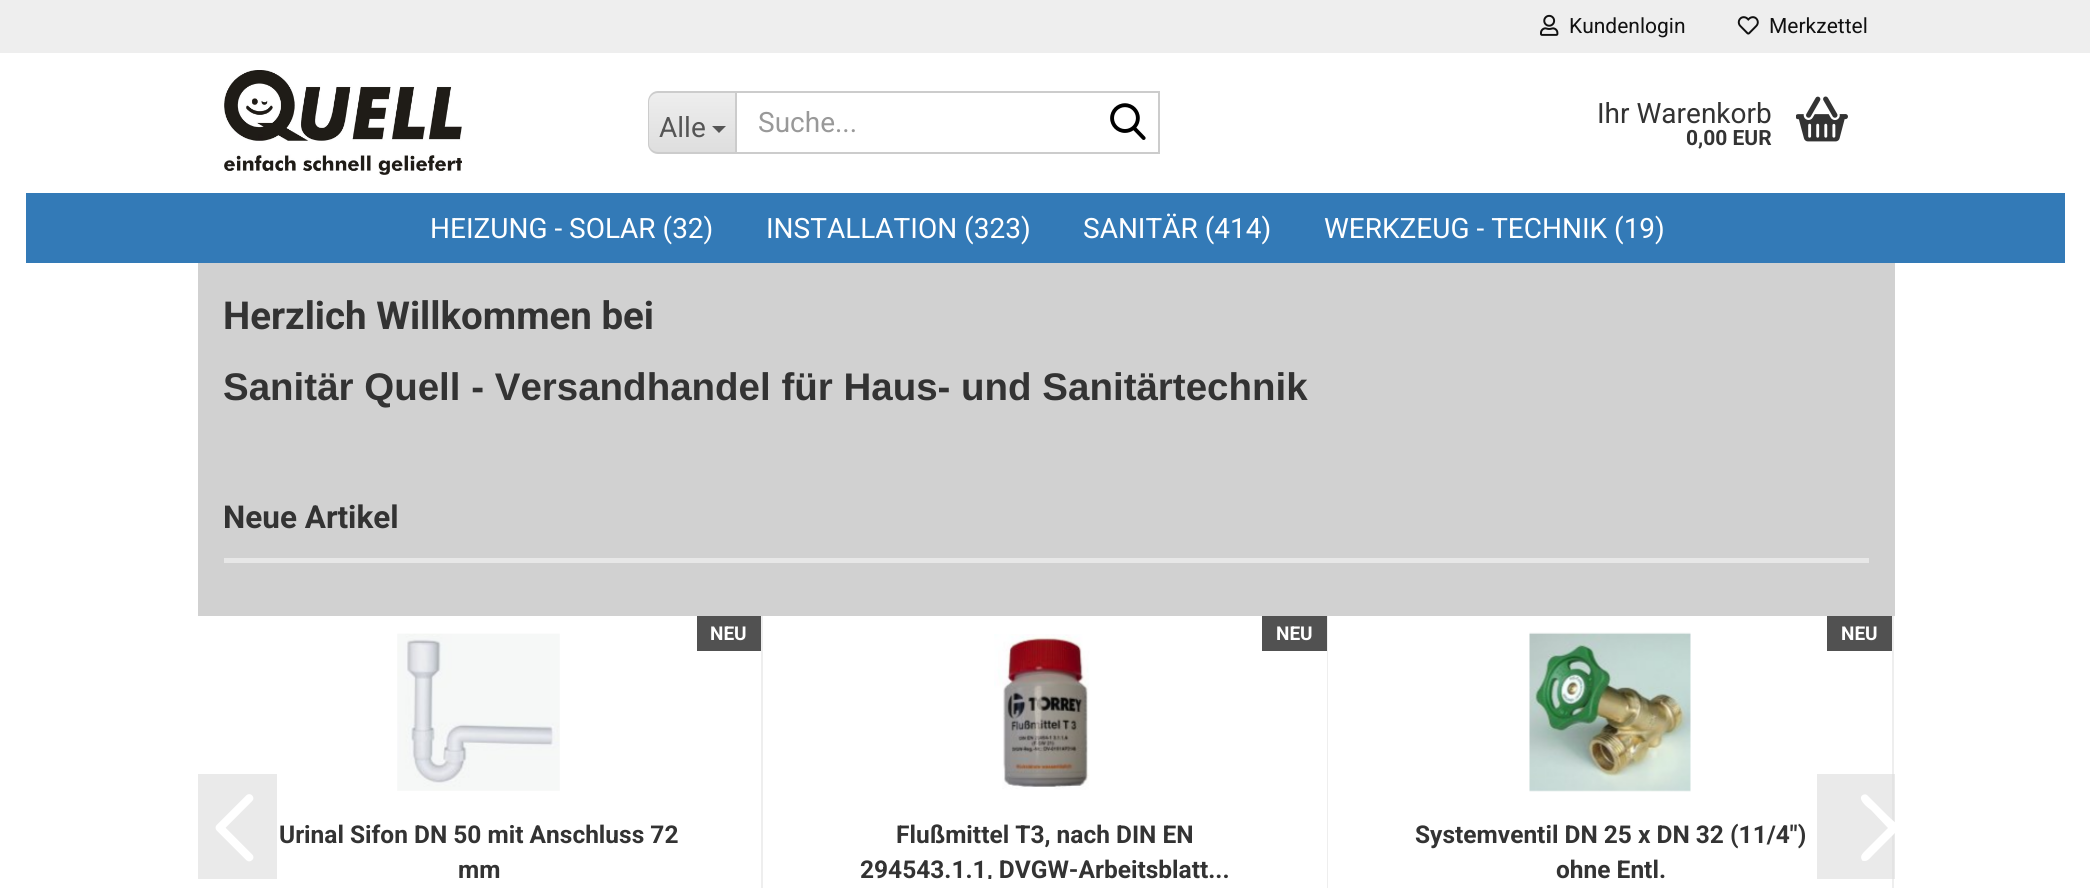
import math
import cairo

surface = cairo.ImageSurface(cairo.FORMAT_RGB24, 2090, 888)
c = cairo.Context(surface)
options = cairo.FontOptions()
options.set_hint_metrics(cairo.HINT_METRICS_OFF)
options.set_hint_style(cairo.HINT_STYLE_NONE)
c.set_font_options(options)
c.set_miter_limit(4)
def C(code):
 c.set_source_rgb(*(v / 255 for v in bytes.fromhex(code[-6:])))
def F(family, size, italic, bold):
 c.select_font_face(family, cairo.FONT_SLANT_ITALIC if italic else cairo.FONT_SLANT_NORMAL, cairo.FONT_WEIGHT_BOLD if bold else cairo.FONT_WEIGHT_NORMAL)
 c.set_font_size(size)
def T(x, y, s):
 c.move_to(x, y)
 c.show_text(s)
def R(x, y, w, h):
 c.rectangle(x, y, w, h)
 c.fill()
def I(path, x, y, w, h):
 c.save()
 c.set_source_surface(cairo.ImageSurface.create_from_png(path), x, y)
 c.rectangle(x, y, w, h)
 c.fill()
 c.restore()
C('ffffff')
c.paint()
C('eeeeee')
R(0,0,2090,53)
I('1.png',1540,14,19,22)
F('Roboto',21,0,0)
C('111111')
T(1569,33,'Kundenlogin')
I('2.png',1737,16,22,19)
T(1769,33,'Merkzettel')
I('3.png',224,70,238,105)
c.save()
c.new_path()
c.move_to(659,91)
c.line_to(735,91)
c.line_to(735,154)
c.line_to(659,154)
c.curve_to(653,154,648,149,648,143)
c.line_to(648,102)
c.curve_to(648,96,653,91,659,91)
c.close_path()
c.clip()
gradient = cairo.LinearGradient(692,93,692,152)
gradient.add_color_stop_rgba(0,0.933,0.933,0.933,1)
gradient.add_color_stop_rgba(1,0.871,0.871,0.871,1)
c.set_source(gradient)
R(648,93,87,59)
c.restore()
C('cccccc')
c.set_fill_rule(cairo.FILL_RULE_EVEN_ODD)
c.new_path()
c.move_to(658,91)
c.line_to(735,91)
c.line_to(735,154)
c.line_to(658,154)
c.curve_to(652,154,648,149,648,144)
c.line_to(648,102)
c.curve_to(648,96,652,91,658,91)
c.close_path()
c.move_to(658,93)
c.line_to(735,93)
c.line_to(735,152)
c.line_to(658,152)
c.curve_to(653,152,649,148,649,144)
c.line_to(649,102)
c.curve_to(649,97,653,93,658,93)
c.close_path()
c.fill()
F('Roboto',28,0,0)
C('555555')
T(659,137,'Alle')
c.set_fill_rule(cairo.FILL_RULE_WINDING)
c.new_path()
c.move_to(712,126)
c.line_to(726,126)
c.line_to(719,133)
c.close_path()
c.fill()
c.rectangle(736,92,423,61)
C('cccccc')
c.stroke()
C('999999')
T(758,132,'Suche...')
I('4.png',1110,103,36,37)
C('333333')
T(1597,123,'Ihr Warenkorb')
F('Roboto',21,0,1)
T(1686,145,'0,00 EUR')
I('5.png',1796,96,52,46)
C('337ab7')
R(26,193,2039,70)
F('Roboto',28,0,0)
C('ffffff')
T(430,238,'HEIZUNG - SOLAR (32)')
T(766,238,'INSTALLATION (323)')
T(1083,238,'SANITÄR (414)')
T(1324,238,'WERKZEUG - TECHNIK (19)')
C('d1d1d1')
R(198,263,1697,353)
F('Roboto',38.5,0,1)
C('333333')
T(223,329,'Herzlich Willkommen bei')
F('Liberation Sans',38.5,0,1)
T(223,400,'Sanitär Quell - Versandhandel für Haus- und Sanitärtechnik')
C('e7e7e7')
R(224,558,1645,5)
F('Roboto',31.5,0,1)
C('333333')
T(223,528,'Neue Artikel')
C('eaeaea')
R(198,774,79,105)
I('6.png',215,794,39,68)
C('eeeeee')
R(761,616,2,272)
I('7.png',397,633,163,158)
C('515151')
R(697,616,64,35)
F('Roboto',19,0,1)
C('ffffff')
T(710,640,'NEU')
F('Roboto',24.5,0,1)
C('333333')
T(279,843,'Urinal Sifon DN 50 mit Anschluss 72')
T(458,878,'mm')
C('eeeeee')
R(1327,616,1,272)
I('8.png',994,634,96,156)
C('515151')
R(1262,616,65,35)
F('Roboto',19,0,1)
C('ffffff')
T(1276,640,'NEU')
F('Roboto',24.5,0,1)
C('333333')
T(896,843,'Flußmittel T3, nach DIN EN')
c.save()
c.rectangle(842,817,406,62)
c.clip()
T(860,878,'294543.1.1, DVGW-Arbeitsblatt...')
c.restore()
C('eaeaea')
R(1817,774,75,105)
C('eeeeee')
R(1892,616,2,272)
C('e3e3e3')
R(1892,774,2,105)
I('9.png',1529,632,162,160)
C('515151')
R(1827,616,65,35)
F('Roboto',19,0,1)
C('ffffff')
T(1841,640,'NEU')
F('Roboto',24.5,0,1)
C('333333')
T(1415,843,'Systemventil DN 25 x DN 32 (11/4")')
T(1556,878,'ohne Entl.')
C('eaeaea')
R(1894,774,1,105)
c.save()
c.rectangle(198,616,1697,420)
c.clip()
C('ffffff')
c.new_path()
c.move_to(1865,861)
c.curve_to(1863,861,1862,861,1862,860)
c.curve_to(1859,856,1864,852,1866,850)
c.line_to(1888,828)
c.line_to(1871,810)
c.curve_to(1868,808,1862,803,1861,799)
c.curve_to(1860,796,1864,793,1867,795)
c.line_to(1887,815)
c.curve_to(1899,827,1903,825,1892,836)
c.line_to(1873,855)
c.curve_to(1871,857,1868,861,1865,861)
c.close_path()
c.fill()
c.restore()
surface.write_to_png('o.png')
